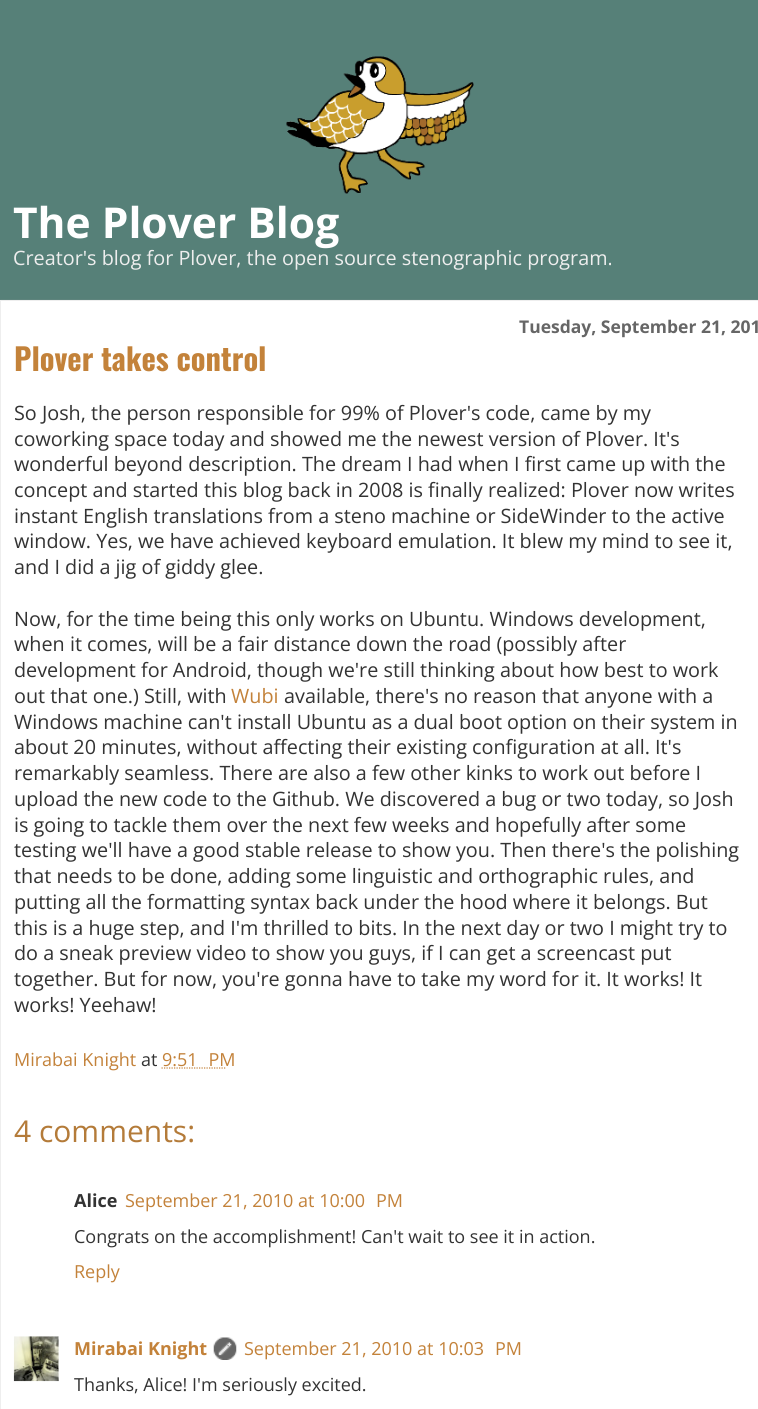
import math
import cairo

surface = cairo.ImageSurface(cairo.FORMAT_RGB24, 758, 1409)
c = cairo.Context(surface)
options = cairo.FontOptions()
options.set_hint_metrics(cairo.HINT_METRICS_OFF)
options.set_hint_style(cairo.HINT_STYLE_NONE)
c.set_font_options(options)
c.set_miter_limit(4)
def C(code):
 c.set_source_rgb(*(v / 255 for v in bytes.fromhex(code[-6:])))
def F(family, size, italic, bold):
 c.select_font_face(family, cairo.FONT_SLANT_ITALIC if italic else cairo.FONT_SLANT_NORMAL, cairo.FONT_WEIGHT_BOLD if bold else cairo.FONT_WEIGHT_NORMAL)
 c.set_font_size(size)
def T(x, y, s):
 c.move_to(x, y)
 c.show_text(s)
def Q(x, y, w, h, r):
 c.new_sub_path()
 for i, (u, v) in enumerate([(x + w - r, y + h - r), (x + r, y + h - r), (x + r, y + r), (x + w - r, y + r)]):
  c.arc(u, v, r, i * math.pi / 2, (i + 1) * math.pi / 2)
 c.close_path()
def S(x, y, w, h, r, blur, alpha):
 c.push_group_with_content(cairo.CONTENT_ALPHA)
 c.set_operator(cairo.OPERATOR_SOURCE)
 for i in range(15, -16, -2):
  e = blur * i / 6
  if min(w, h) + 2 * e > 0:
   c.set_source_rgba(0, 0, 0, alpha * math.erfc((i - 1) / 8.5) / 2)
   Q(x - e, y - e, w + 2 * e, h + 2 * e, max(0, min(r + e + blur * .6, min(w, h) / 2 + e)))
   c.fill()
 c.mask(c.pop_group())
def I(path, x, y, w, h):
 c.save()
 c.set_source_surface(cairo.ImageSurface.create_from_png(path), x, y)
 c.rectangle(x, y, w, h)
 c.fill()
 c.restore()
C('568078')
c.paint()
I('1.png',286,56,188,138)
F('Open Sans',42.5,0,1)
C('ffffff')
T(13,238,'The Plover Blog')
F('Open Sans',19.8,0,0)
C('eeeeee')
T(13,265,'Creator\'s blog for Plover, the open source stenographic program.')
C('aaaaaa')
S(0,301,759,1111,0,1,1)
C('ffffff')
c.rectangle(.5,300.5,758,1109)
c.fill_preserve()
C('eeeeee')
c.set_line_width(1)
c.stroke()
F('Open Sans',17.5,0,1)
C('666666')
T(519,333,'Tuesday, September 21, 201')
F('Oswald',30.5,0,1)
C('c3823a')
T(14,371,'Plover takes control')
F('Open Sans',19.8,0,0)
C('333333')
T(14,420,'So Josh, the person responsible for 99% of Plover\'s code, came by my')
T(14,446,'coworking space today and showed me the newest version of Plover. It\'s')
T(14,471,'wonderful beyond description. The dream I had when I first came up with the')
T(14,497,'concept and started this blog back in 2008 is finally realized: Plover now writes')
T(14,523,'instant English translations from a steno machine or SideWinder to the active')
T(14,548,'window. Yes, we have achieved keyboard emulation. It blew my mind to see it,')
T(14,574,'and I did a jig of giddy glee.')
T(14,626,'Now, for the time being this only works on Ubuntu. Windows development,')
T(14,651,'when it comes, will be a fair distance down the road (possibly after')
T(14,677,'development for Android, though we\'re still thinking about how best to work')
T(14,703,'out that one.) Still, with')
C('c3823a')
T(231,703,'Wubi')
C('333333')
T(284,703,'available, there\'s no reason that anyone with a')
T(14,729,'Windows machine can\'t install Ubuntu as a dual boot option on their system in')
T(14,754,'about 20 minutes, without affecting their existing configuration at all. It\'s')
T(14,780,'remarkably seamless. There are also a few other kinks to work out before I')
T(14,806,'upload the new code to the Github. We discovered a bug or two today, so Josh')
T(14,832,'is going to tackle them over the next few weeks and hopefully after some')
T(14,857,'testing we\'ll have a good stable release to show you. Then there\'s the polishing')
T(14,883,'that needs to be done, adding some linguistic and orthographic rules, and')
T(14,909,'putting all the formatting syntax back under the hood where it belongs. But')
T(14,935,'this is a huge step, and I\'m thrilled to bits. In the next day or two I might try to')
T(14,960,'do a sneak preview video to show you guys, if I can get a screencast put')
T(14,986,'together. But for now, you\'re gonna have to take my word for it. It works! It')
T(14,1012,'works! Yeehaw!')
F('Open Sans',18,0,0)
C('c3823a')
T(14,1066,'Mirabai Knight')
C('333333')
T(141,1066,'at')
C('c3823a')
T(162,1066,'9:51 PM')
c.new_path()
c.move_to(161.5,1068)
c.line_to(226.5,1068)
c.set_line_width(1.2)
c.set_dash([1.25,1.25])
c.stroke()
F('Open Sans',30,0,0)
C('b47b39')
T(14,1142,'4 comments:')
F('Open Sans',18,0,1)
C('333333')
T(74,1207,'Alice')
F('Open Sans',18,0,0)
C('c3823a')
T(125,1207,'September 21, 2010 at 10:00 PM')
C('333333')
T(74,1243,'Congrats on the accomplishment! Can\'t wait to see it in action.')
C('c3823a')
T(74,1278,'Reply')
I('2.png',13,1336,46,46)
F('Open Sans',18,0,1)
T(74,1355,'Mirabai Knight')
I('3.png',213,1337,24,23)
F('Open Sans',18,0,0)
T(244,1355,'September 21, 2010 at 10:03 PM')
C('333333')
T(74,1391,'Thanks, Alice! I\'m seriously excited.')
surface.write_to_png('o.png')
